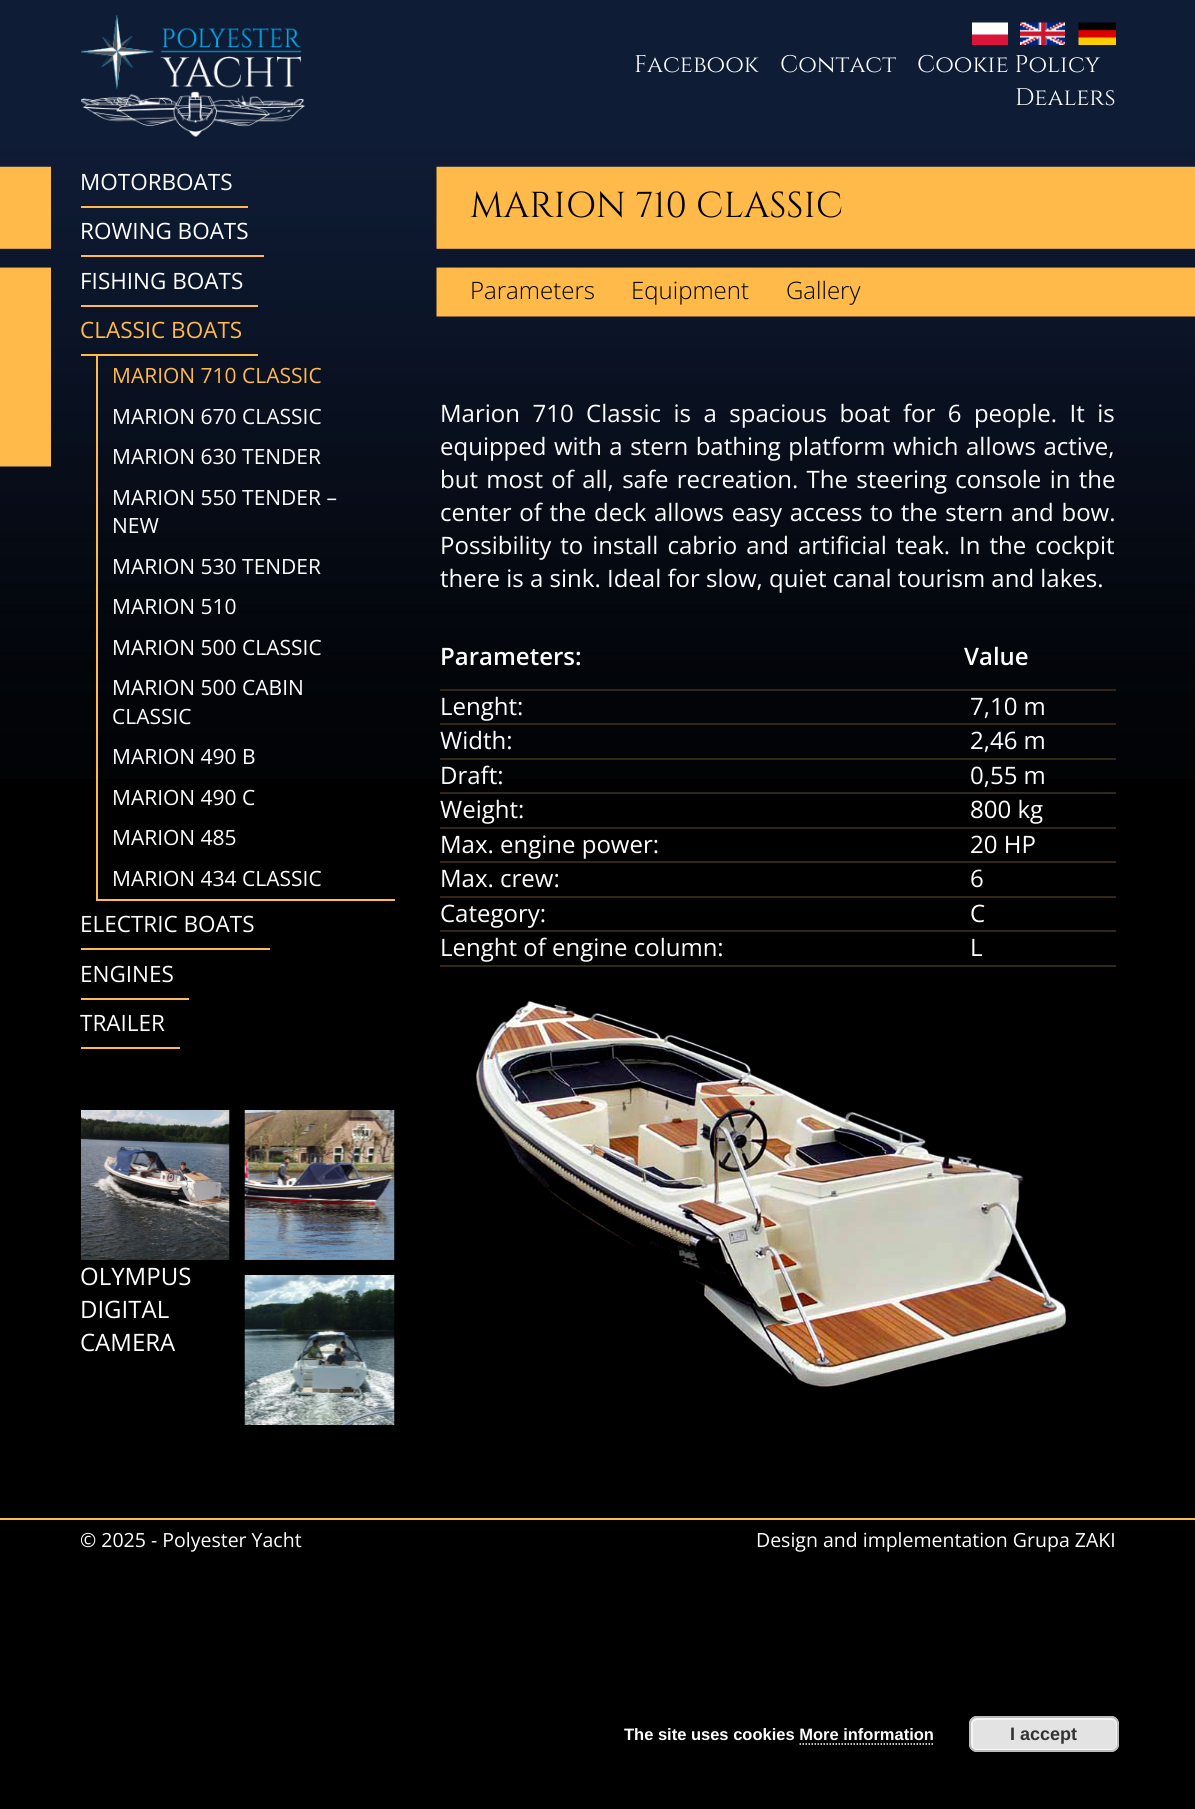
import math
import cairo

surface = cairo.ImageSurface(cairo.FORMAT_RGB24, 1195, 1809)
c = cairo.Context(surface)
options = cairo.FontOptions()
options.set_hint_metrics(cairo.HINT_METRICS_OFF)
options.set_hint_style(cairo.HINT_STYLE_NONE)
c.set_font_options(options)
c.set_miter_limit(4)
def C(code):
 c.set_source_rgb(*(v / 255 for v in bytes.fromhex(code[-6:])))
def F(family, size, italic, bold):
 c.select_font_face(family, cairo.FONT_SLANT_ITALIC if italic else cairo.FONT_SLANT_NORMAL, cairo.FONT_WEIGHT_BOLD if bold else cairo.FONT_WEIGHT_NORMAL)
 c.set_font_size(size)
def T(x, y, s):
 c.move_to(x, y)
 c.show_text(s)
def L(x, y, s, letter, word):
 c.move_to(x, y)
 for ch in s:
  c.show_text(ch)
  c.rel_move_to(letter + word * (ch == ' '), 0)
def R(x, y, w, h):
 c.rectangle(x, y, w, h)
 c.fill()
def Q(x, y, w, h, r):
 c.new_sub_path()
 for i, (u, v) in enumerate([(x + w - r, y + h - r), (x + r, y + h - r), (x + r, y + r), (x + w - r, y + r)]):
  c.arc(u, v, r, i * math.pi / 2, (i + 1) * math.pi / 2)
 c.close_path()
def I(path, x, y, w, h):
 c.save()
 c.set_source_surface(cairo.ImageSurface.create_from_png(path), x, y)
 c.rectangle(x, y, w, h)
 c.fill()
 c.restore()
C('000000')
c.paint()
I('1.png',0,0,1195,779)
I('2.png',81,15,224,122)
I('3.png',972,22,36,23)
I('4.png',1020,22,45,23)
I('5.png',1078,22,38,23)
F('Cinzel',24,0,0)
C('ffffff')
T(634,72,'Facebook')
T(780,72,'Contact')
T(917,72,'Cookie Policy')
T(1015,105,'Dealers')
I('6.png',0,166,51,301)
I('7.png',436,166,759,151)
C('ffba4a')
R(81,206,167,2)
F('Open Sans',22.5,0,0)
C('ffffff')
T(80,190,'MOTORBOATS')
C('ffba4a')
R(81,255,183,2)
C('ffffff')
T(80,239,'ROWING BOATS')
C('ffba4a')
R(81,305,177,2)
C('ffffff')
T(80,289,'FISHING BOATS')
C('ffba4a')
R(81,354,177,2)
T(80,338,'CLASSIC BOATS')
R(96,899,299,2)
R(96,356,2,544)
F('Open Sans',21,0,0)
T(112,383,'MARION 710 CLASSIC')
C('ffffff')
T(112,424,'MARION 670 CLASSIC')
T(112,464,'MARION 630 TENDER')
T(112,505,'MARION 550 TENDER –')
T(112,533,'NEW')
T(112,574,'MARION 530 TENDER')
T(112,614,'MARION 510')
T(112,655,'MARION 500 CLASSIC')
T(112,695,'MARION 500 CABIN')
T(112,724,'CLASSIC')
T(112,764,'MARION 490 B')
T(112,805,'MARION 490 C')
T(112,845,'MARION 485')
T(112,886,'MARION 434 CLASSIC')
C('ffba4a')
R(81,948,189,2)
F('Open Sans',22.5,0,0)
C('ffffff')
T(80,932,'ELECTRIC BOATS')
C('ffba4a')
R(81,998,108,2)
C('ffffff')
T(80,982,'ENGINES')
C('ffba4a')
R(81,1047,99,2)
C('ffffff')
T(80,1031,'TRAILER')
I('8.png',244,1110,151,150)
I('9.png',81,1110,149,150)
F('Open Sans',24,0,0)
T(80,1285,'OLYMPUS')
T(80,1318,'DIGITAL')
T(80,1351,'CAMERA')
I('10.png',244,1275,151,150)
F('Cinzel',36,0,0)
C('000000')
T(470,217,'MARION 710 CLASSIC')
F('Open Sans Light',24,0,0)
T(470,299,'Parameters')
T(631,299,'Equipment')
T(786,299,'Gallery')
F('Open Sans',24,0,0)
C('ffffff')
L(440,422,'Marion 710 Classic is a spacious boat for 6 people. It is',0,6.25)
L(440,455,'equipped with a stern bathing platform which allows active,',0,1.25)
L(440,488,'but most of all, safe recreation. The steering console in the',0,2.1)
L(440,521,'center of the deck allows easy access to the stern and bow.',0,1.5)
L(440,554,'Possibility to install cabrio and artificial teak. In the cockpit',0,2.75)
T(440,587,'there is a sink. Ideal for slow, quiet canal tourism and lakes.')
C('332713')
R(440,689,676,2)
F('Open Sans SemiBold',24,0,0)
C('ffffff')
T(440,665,'Parameters:')
T(964,665,'Value')
C('332713')
R(440,723,676,2)
F('Open Sans',24,0,0)
C('ffffff')
T(440,715,'Lenght:')
T(970,715,'7,10 m')
C('332713')
R(440,758,676,2)
C('ffffff')
T(440,749,'Width:')
T(970,749,'2,46 m')
C('332713')
R(440,792,676,2)
C('ffffff')
T(440,784,'Draft:')
T(970,784,'0,55 m')
C('332713')
R(440,827,676,2)
C('ffffff')
T(440,818,'Weight:')
T(970,818,'800 kg')
C('332713')
R(440,861,676,2)
C('ffffff')
T(440,853,'Max. engine power:')
T(970,853,'20 HP')
C('332713')
R(440,896,676,2)
C('ffffff')
T(440,887,'Max. crew:')
T(970,887,'6')
C('332713')
R(440,930,676,2)
C('ffffff')
T(440,922,'Category:')
T(970,922,'C')
C('332713')
R(440,965,676,2)
C('ffffff')
T(440,956,'Lenght of engine column:')
T(970,956,'L')
I('11.png',475,1001,592,386)
C('ffba4a')
R(0,1518,1195,2)
F('Open Sans',19.5,0,0)
C('ffffff')
T(80,1547,'© 2025 - Polyester Yacht')
T(756,1547,'Design and implementation Grupa ZAKI')
F('Liberation Sans',16.5,0,1)
T(624,1740,'The site uses cookies More information')
C('e3e3e3')
Q(969,1716,150,36,8)
c.fill()
Q(972,1719,145,31,5)
C('f6f6f6')
c.stroke()
Q(970,1717,148,34,7)
C('bbbbbb')
c.stroke()
F('Liberation Sans',18,0,1)
C('333333')
T(1010,1740,'I accept')
c.new_path()
c.move_to(799.5,1744)
c.line_to(934.5,1744)
C('ffffff')
c.set_line_width(1.5)
c.set_dash([1.5,1.5])
c.stroke()
surface.write_to_png('o.png')
